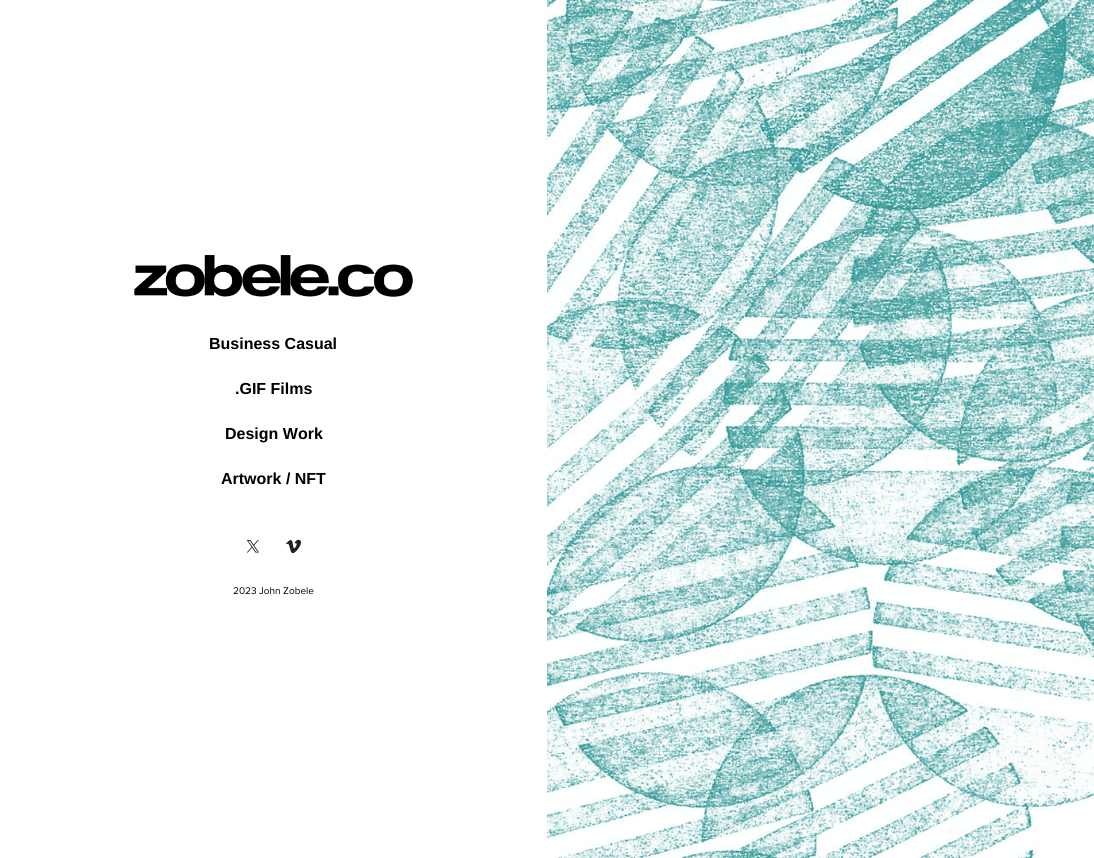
import math
import cairo

surface = cairo.ImageSurface(cairo.FORMAT_RGB24, 1094, 858)
c = cairo.Context(surface)
options = cairo.FontOptions()
options.set_hint_metrics(cairo.HINT_METRICS_OFF)
options.set_hint_style(cairo.HINT_STYLE_NONE)
c.set_font_options(options)
c.set_miter_limit(4)
def C(code):
 c.set_source_rgb(*(v / 255 for v in bytes.fromhex(code[-6:])))
def F(family, size, italic, bold):
 c.select_font_face(family, cairo.FONT_SLANT_ITALIC if italic else cairo.FONT_SLANT_NORMAL, cairo.FONT_WEIGHT_BOLD if bold else cairo.FONT_WEIGHT_NORMAL)
 c.set_font_size(size)
def T(x, y, s):
 c.move_to(x, y)
 c.show_text(s)
def I(path, x, y, w, h):
 c.save()
 c.set_source_surface(cairo.ImageSurface.create_from_png(path), x, y)
 c.rectangle(x, y, w, h)
 c.fill()
 c.restore()
C('ffffff')
c.paint()
I('1.png',134,255,279,42)
F('Liberation Sans',16,0,1)
C('000000')
T(209,349,'Business Casual')
T(235,394,'.GIF Films')
T(225,439,'Design Work')
T(221,484,'Artwork / NFT')
I('2.png',246,540,13,13)
I('3.png',286,539,15,15)
F('Proxima Nova',10,0,0)
T(233,594,'2023 John Zobele')
I('4.png',547,0,547,858)
surface.write_to_png('o.png')
